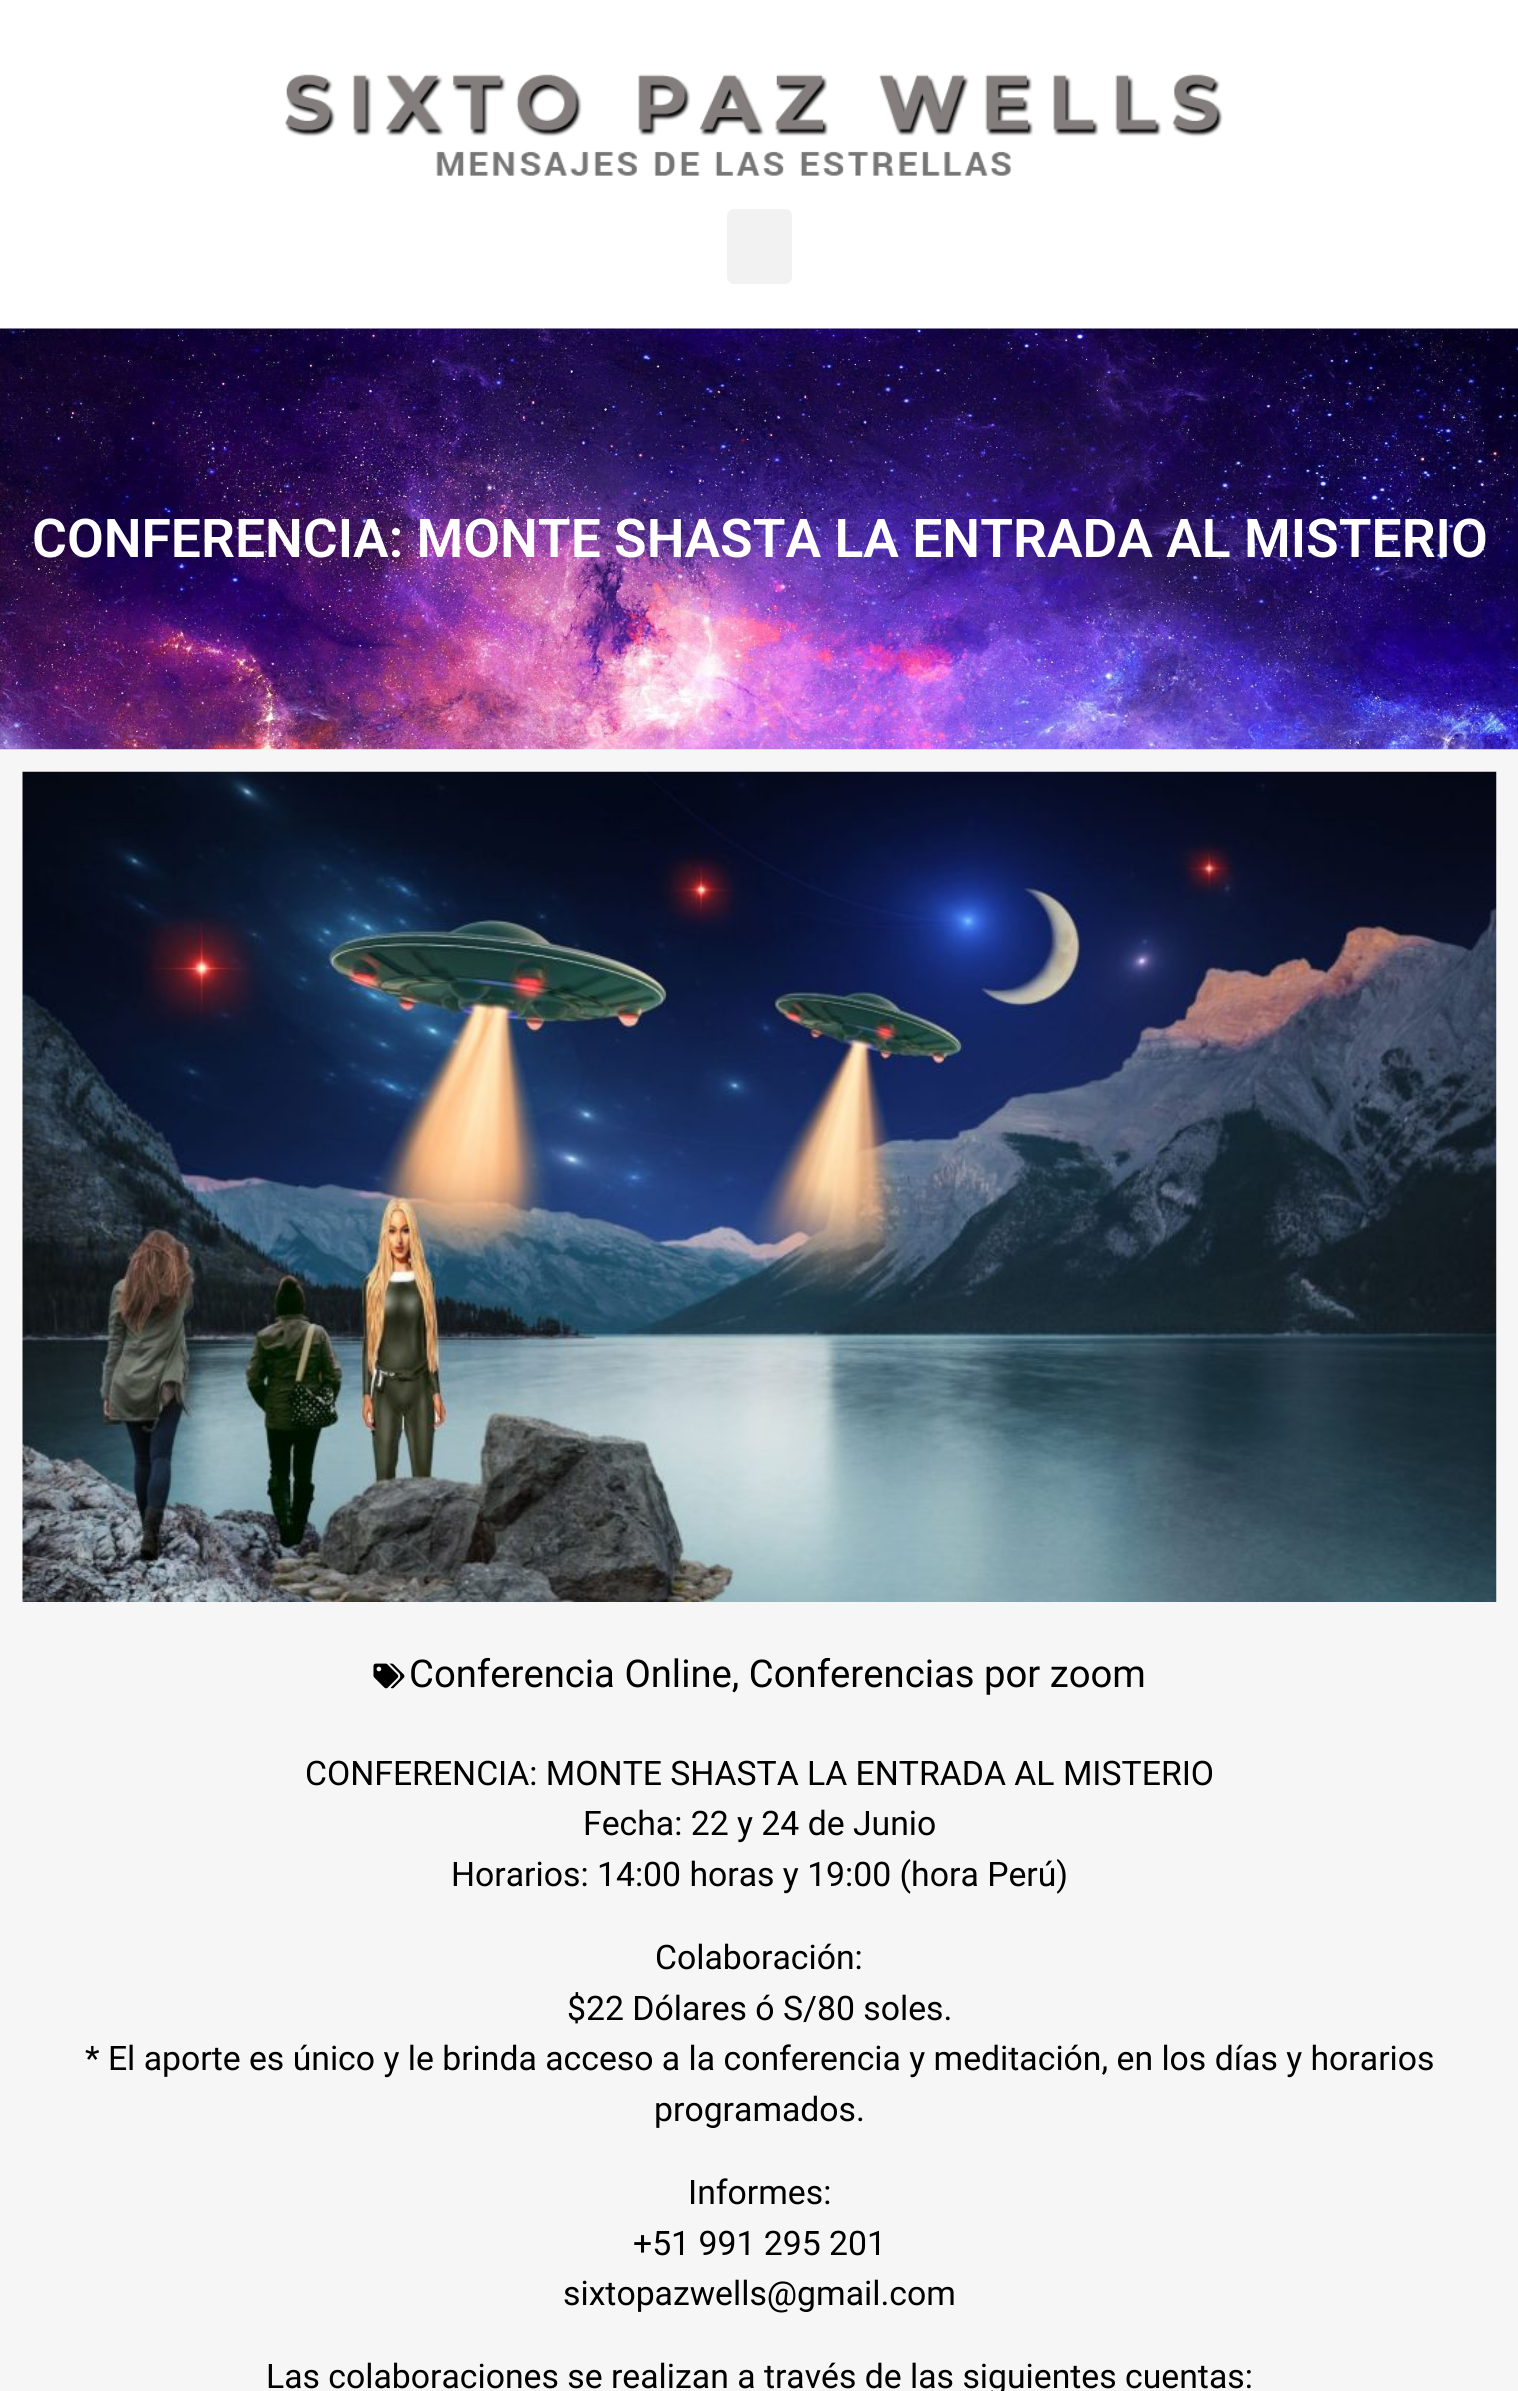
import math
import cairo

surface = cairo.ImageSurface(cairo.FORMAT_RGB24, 1518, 2391)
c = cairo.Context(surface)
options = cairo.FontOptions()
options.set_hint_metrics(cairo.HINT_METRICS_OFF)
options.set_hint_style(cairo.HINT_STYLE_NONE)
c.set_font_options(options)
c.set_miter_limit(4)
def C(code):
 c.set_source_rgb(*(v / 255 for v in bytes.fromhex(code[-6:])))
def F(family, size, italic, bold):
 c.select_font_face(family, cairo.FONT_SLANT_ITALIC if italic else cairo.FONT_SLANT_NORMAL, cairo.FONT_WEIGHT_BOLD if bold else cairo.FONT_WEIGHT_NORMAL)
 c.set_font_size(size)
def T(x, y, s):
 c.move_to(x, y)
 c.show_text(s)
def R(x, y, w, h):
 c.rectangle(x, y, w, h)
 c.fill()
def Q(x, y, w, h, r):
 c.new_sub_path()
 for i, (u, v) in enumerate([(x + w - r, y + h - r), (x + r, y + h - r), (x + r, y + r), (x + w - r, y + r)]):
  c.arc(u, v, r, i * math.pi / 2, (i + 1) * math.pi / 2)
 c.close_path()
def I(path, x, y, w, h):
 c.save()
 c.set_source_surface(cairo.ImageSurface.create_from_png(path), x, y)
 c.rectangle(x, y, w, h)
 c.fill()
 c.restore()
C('f6f6f6')
c.paint()
C('ffffff')
R(0,0,1518,329)
I('1.png',285,74,938,102)
C('f2f2f2')
Q(727,209,65,75,7)
c.fill()
I('2.png',0,328,1518,422)
F('Roboto SemiBold',53.4,0,0)
C('ffffff')
T(32,557,'CONFERENCIA: MONTE SHASTA LA ENTRADA AL MISTERIO')
I('3.png',22,771,1475,831)
I('4.png',373,1663,32,26)
F('Roboto',38.25,0,0)
C('000000')
T(409,1687,'Conferencia Online, Conferencias por zoom')
F('Roboto',33.75,0,0)
T(305,1785,'CONFERENCIA: MONTE SHASTA LA ENTRADA AL MISTERIO')
T(583,1835,'Fecha: 22 y 24 de Junio')
T(451,1886,'Horarios: 14:00 horas y 19:00 (hora Perú)')
T(655,1969,'Colaboración:')
T(567,2020,'$22 Dólares ó S/80 soles.')
T(85,2070,'* El aporte es único y le brinda acceso a la conferencia y meditación, en los días y horarios')
T(654,2121,'programados.')
T(688,2204,'Informes:')
T(633,2255,'+51 991 295 201')
T(563,2305,'sixtopazwells@gmail.com')
T(266,2388,'Las colaboraciones se realizan a través de las siguientes cuentas:')
surface.write_to_png('o.png')
